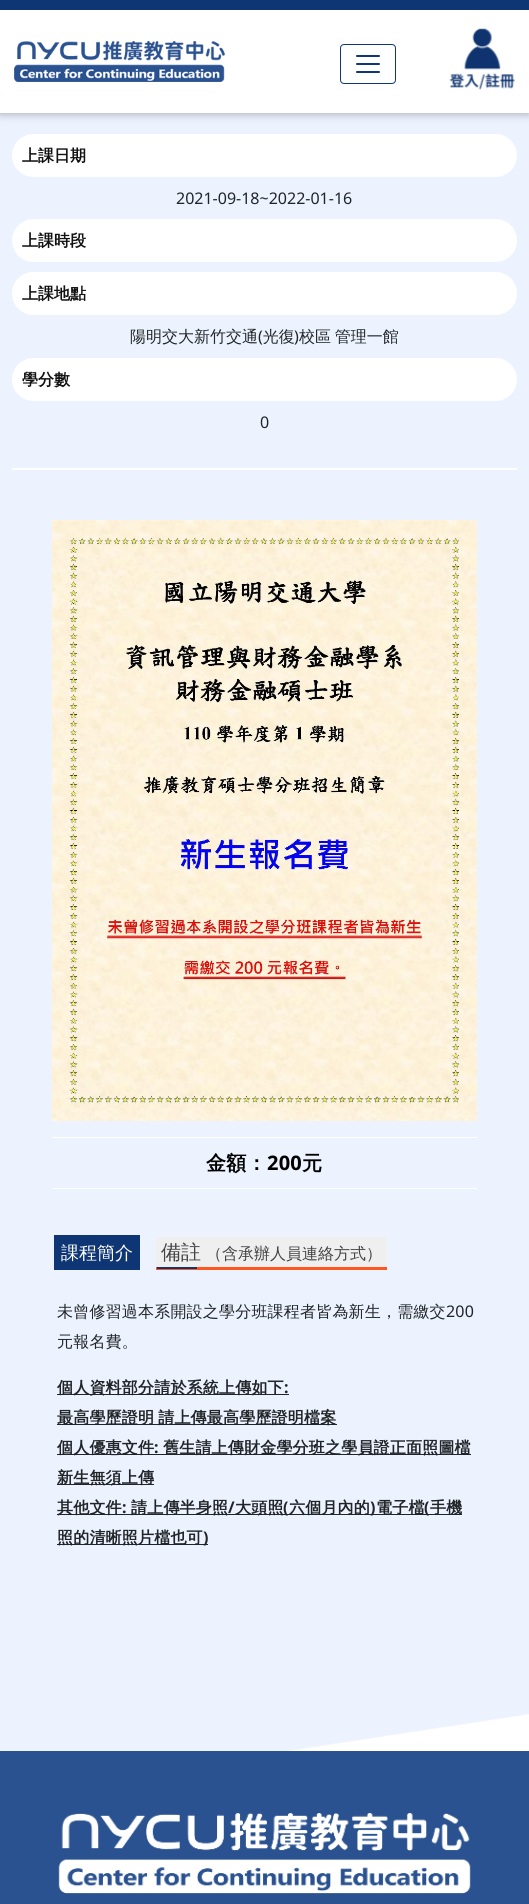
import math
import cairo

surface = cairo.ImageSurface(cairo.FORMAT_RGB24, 529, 1904)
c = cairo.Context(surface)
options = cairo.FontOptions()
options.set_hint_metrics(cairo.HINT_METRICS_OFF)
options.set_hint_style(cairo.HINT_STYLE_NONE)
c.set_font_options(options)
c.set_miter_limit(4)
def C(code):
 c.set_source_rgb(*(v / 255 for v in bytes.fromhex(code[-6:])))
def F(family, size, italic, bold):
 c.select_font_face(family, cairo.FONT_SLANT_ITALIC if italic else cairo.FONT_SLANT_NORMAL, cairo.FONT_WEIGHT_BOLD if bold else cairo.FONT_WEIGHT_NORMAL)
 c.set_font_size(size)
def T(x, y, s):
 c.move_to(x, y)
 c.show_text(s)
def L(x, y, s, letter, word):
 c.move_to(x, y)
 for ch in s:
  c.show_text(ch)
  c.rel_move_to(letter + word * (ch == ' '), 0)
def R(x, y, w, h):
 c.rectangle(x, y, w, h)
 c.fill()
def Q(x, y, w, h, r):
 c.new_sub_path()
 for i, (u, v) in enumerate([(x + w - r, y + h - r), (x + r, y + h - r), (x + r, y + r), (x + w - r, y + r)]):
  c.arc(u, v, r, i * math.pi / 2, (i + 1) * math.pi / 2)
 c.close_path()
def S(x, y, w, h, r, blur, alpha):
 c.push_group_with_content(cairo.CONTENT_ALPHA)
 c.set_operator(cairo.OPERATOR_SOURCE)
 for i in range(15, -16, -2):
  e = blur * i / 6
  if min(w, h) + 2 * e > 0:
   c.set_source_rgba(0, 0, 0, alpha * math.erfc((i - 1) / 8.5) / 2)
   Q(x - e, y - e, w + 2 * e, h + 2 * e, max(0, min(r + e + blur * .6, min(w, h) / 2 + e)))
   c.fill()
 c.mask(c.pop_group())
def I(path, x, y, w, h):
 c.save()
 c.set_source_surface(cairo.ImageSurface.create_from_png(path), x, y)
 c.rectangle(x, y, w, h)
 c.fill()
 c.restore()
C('ecf2fe')
c.paint()
C('000000')
S(0,1,529,113,0,4.5,.29)
C('ffffff')
R(0,10,529,103)
C('0f3674')
R(0,0,529,10)
I('1.png',14,41,211,41)
Q(340.5,44.5,55,39,3.5)
C('0f3675')
c.set_line_width(1)
c.stroke()
I('2.png',356,55,24,18)
I('3.png',449,28,66,62)
C('ffffff')
Q(12,134,505,43,21.5)
c.fill()
F('WenQuanYi Zen Hei',16,0,1)
C('121212')
T(22,161,'上課日期')
F('Noto Sans',16,0,0)
C('212529')
T(176,204,'2021-09-18~2022-01-16')
C('ffffff')
Q(12,219,505,43,21.5)
c.fill()
F('WenQuanYi Zen Hei',16,0,1)
C('121212')
T(22,246,'上課時段')
C('ffffff')
Q(12,272,505,43,21.5)
c.fill()
C('121212')
T(22,299,'上課地點')
F('WenQuanYi Zen Hei Medium',16,0,0)
C('212529')
T(130,342,'陽明交大新竹交通 光復')
L(299,342,'校區 管理一館',0,-1)
F('Noto Sans',16,0,0)
T(258,342,'(')
T(294,342,')')
C('ffffff')
Q(12,358,505,43,21.5)
c.fill()
F('WenQuanYi Zen Hei',16,0,1)
C('121212')
T(22,385,'學分數')
F('Noto Sans',16,0,0)
C('212529')
T(260,428,'0')
C('ffffff')
R(12,468,505,2)
I('4.png',52,520,425,601)
R(52,1137,425,1)
F('WenQuanYi Zen Hei',20,0,1)
C('000000')
L(206,1170,'金額：',.2,0)
F('Noto Sans',20,0,1)
L(267,1170,'200',.2,0)
F('WenQuanYi Zen Hei',20,0,1)
L(302,1170,'元',.2,0)
C('ffffff')
R(52,1188,425,1)
C('0f3674')
R(54,1235,86,35)
F('WenQuanYi Zen Hei Medium',18,0,0)
C('ffffff')
T(61,1259,'課程簡介')
C('efefef')
R(156,1237,231,30)
C('ff561f')
R(156,1267,231,3)
F('WenQuanYi Zen Hei Medium',20,0,0)
C('434343')
T(161,1259,'備註')
F('WenQuanYi Zen Hei Medium',16,0,0)
T(206,1259,'（含承辦人員連絡方式）')
C('0f3674')
R(157,1267,40,2)
C('212529')
L(57,1317,'未曾修習過本系開設之學分班課程者皆為新生，需繳交',.2,0)
F('Noto Sans',16,0,0)
L(446,1317,'200',.2,0)
F('WenQuanYi Zen Hei Medium',16,0,0)
L(57,1347,'元報名費。',.2,0)
R(57,1394,232,1)
F('WenQuanYi Zen Hei',16,0,1)
L(57,1393,'個人資料部分請於系統上傳如下',.2,0)
F('Noto Sans',16,0,1)
L(284,1393,':',.2,0)
R(57,1424,280,1)
F('WenQuanYi Zen Hei',16,0,1)
L(57,1423,'最高學歷證明 請上傳最高學歷證明檔案',.2,-1)
R(57,1454,414,1)
L(57,1453,'個人優惠文件',.2,0)
F('Noto Sans',16,0,1)
L(154,1453,':',.2,0)
F('WenQuanYi Zen Hei',16,0,1)
L(163,1453,'舊生請上傳財金學分班之學員證正面照圖檔',.2,0)
R(57,1484,97,1)
L(57,1483,'新生無須上傳',.2,0)
R(57,1514,405,1)
L(57,1513,'其他文件',.2,0)
F('Noto Sans',16,0,1)
L(122,1513,':',.2,0)
F('WenQuanYi Zen Hei',16,0,1)
L(131,1513,'請上傳半身照',.2,0)
F('Noto Sans',16,0,1)
L(228,1513,'/',.2,0)
F('WenQuanYi Zen Hei',16,0,1)
L(235,1513,'大頭照',.2,0)
F('Noto Sans',16,0,1)
L(283,1513,'(',.2,0)
F('WenQuanYi Zen Hei',16,0,1)
L(289,1513,'六個月內的',.2,0)
F('Noto Sans',16,0,1)
L(370,1513,')',.2,0)
F('WenQuanYi Zen Hei',16,0,1)
L(376,1513,'電子檔',.2,0)
F('Noto Sans',16,0,1)
L(424,1513,'(',.2,0)
F('WenQuanYi Zen Hei',16,0,1)
L(430,1513,'手機',.2,0)
R(57,1544,151,1)
L(57,1543,'照的清晰照片檔也可',.2,0)
F('Noto Sans',16,0,1)
L(203,1543,')',.2,0)
C('2a5290')
R(0,1751,529,153)
I('5.png',0,1701,529,50)
I('6.png',58,1813,413,81)
surface.write_to_png('o.png')
